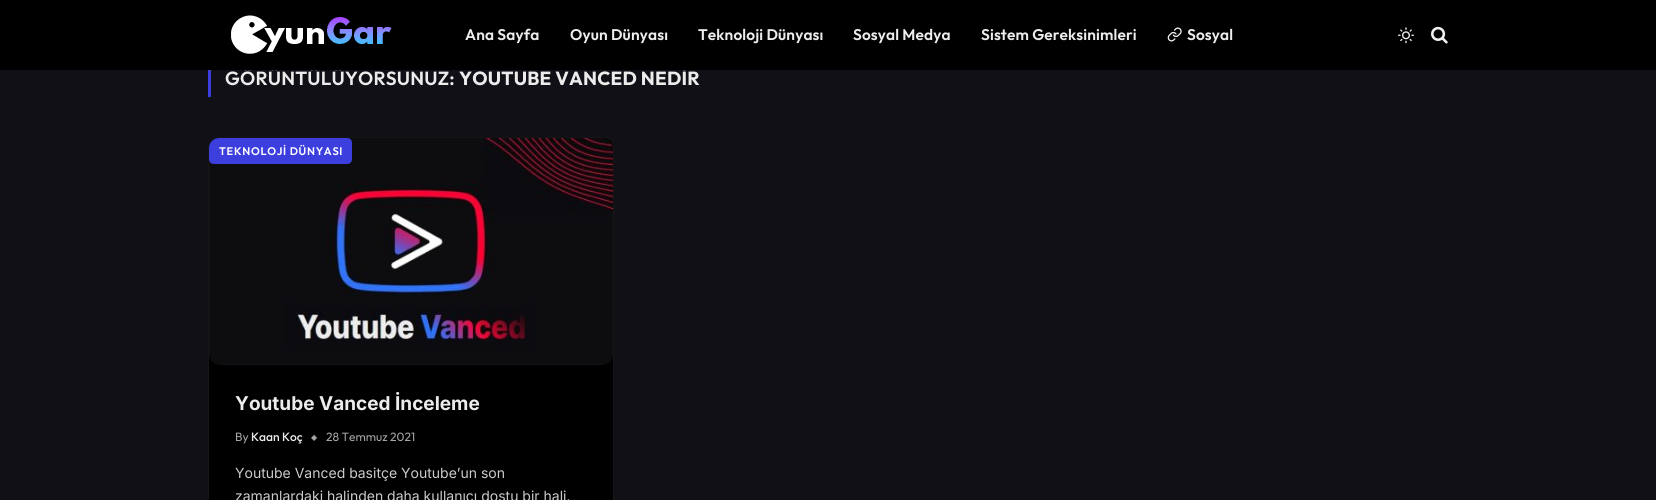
import math
import cairo

surface = cairo.ImageSurface(cairo.FORMAT_RGB24, 1656, 500)
c = cairo.Context(surface)
options = cairo.FontOptions()
options.set_hint_metrics(cairo.HINT_METRICS_OFF)
options.set_hint_style(cairo.HINT_STYLE_NONE)
c.set_font_options(options)
c.set_miter_limit(4)
def C(code):
 c.set_source_rgb(*(v / 255 for v in bytes.fromhex(code[-6:])))
def F(family, size, italic, bold):
 c.select_font_face(family, cairo.FONT_SLANT_ITALIC if italic else cairo.FONT_SLANT_NORMAL, cairo.FONT_WEIGHT_BOLD if bold else cairo.FONT_WEIGHT_NORMAL)
 c.set_font_size(size)
def T(x, y, s):
 c.move_to(x, y)
 c.show_text(s)
def L(x, y, s, letter, word):
 c.move_to(x, y)
 for ch in s:
  c.show_text(ch)
  c.rel_move_to(letter + word * (ch == ' '), 0)
def R(x, y, w, h):
 c.rectangle(x, y, w, h)
 c.fill()
def Q(x, y, w, h, r):
 c.new_sub_path()
 for i, (u, v) in enumerate([(x + w - r, y + h - r), (x + r, y + h - r), (x + r, y + r), (x + w - r, y + r)]):
  c.arc(u, v, r, i * math.pi / 2, (i + 1) * math.pi / 2)
 c.close_path()
def I(path, x, y, w, h):
 c.save()
 c.set_source_surface(cairo.ImageSurface.create_from_png(path), x, y)
 c.rectangle(x, y, w, h)
 c.fill()
 c.restore()
C('101016')
c.paint()
F('Outfit SemiBold',19,0,0)
C('ececec')
L(225,85,'GÖRÜNTÜLÜYORSUNUZ:',.2,0)
F('Outfit',19,0,1)
L(459,85,'YOUTUBE VANCED NEDİR',.2,0)
C('000000')
R(0,0,1656,70)
I('1.png',231,15,161,39)
F('Outfit SemiBold',15.4,0,0)
C('ececec')
L(465,40,'Ana Sayfa',.15,0)
L(570,40,'Oyun Dünyası',.15,0)
L(698,40,'Teknoloji Dünyası',.15,0)
L(853,40,'Sosyal Medya',.15,0)
L(981,40,'Sistem Gereksinimleri',.15,0)
I('2.png',1167,27,15,15)
L(1187,40,'Sosyal',.15,0)
I('3.png',1398,27,16,17)
I('4.png',1431,26,17,18)
C('3c3fde')
R(208,70,3,27)
C('000000')
Q(208.5,137.5,405,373,9.5)
c.fill_preserve()
C('151515')
c.set_line_width(1)
c.stroke()
I('5.png',209,138,404,227)
C('3c3fde')
c.new_path()
c.move_to(219,138)
c.line_to(347,138)
c.curve_to(350,138,352,140,352,143)
c.line_to(352,159)
c.curve_to(352,162,350,164,347,164)
c.line_to(214,164)
c.curve_to(211,164,209,162,209,159)
c.line_to(209,148)
c.curve_to(209,142.5,213.5,138,219,138)
c.close_path()
c.fill()
F('Outfit SemiBold',11,0,0)
C('ffffff')
L(219,155,'TEKNOLOJİ DÜNYASI',.7,0)
F('Inter',19,0,1)
C('ececec')
T(235,410,'Youtube Vanced İnceleme')
F('Outfit',12,0,0)
C('a6a6a6')
T(235,441,'By')
F('Outfit Medium',12,0,0)
C('ececec')
T(251,441,'Kaan Koç')
F('DejaVu Sans',8,0,0)
C('a6a6a6')
T(311,440,'◆')
F('Outfit',12,0,0)
T(326,441,'28 Temmuz 2021')
F('Inter',14,0,0)
C('cccccc')
T(235,478,'Youtube Vanced basitçe Youtube’un son')
T(235,501,'zamanlardaki halinden daha kullanıcı dostu bir hali.')
surface.write_to_png('o.png')
